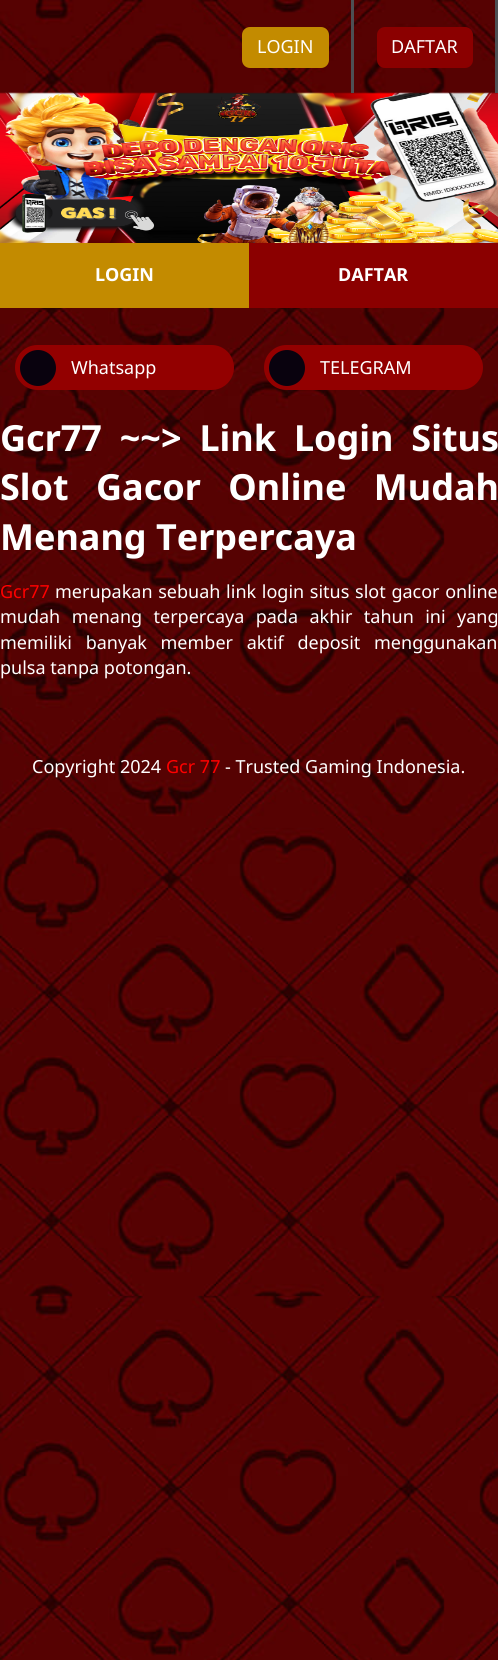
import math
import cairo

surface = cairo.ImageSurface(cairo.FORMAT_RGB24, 498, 1660)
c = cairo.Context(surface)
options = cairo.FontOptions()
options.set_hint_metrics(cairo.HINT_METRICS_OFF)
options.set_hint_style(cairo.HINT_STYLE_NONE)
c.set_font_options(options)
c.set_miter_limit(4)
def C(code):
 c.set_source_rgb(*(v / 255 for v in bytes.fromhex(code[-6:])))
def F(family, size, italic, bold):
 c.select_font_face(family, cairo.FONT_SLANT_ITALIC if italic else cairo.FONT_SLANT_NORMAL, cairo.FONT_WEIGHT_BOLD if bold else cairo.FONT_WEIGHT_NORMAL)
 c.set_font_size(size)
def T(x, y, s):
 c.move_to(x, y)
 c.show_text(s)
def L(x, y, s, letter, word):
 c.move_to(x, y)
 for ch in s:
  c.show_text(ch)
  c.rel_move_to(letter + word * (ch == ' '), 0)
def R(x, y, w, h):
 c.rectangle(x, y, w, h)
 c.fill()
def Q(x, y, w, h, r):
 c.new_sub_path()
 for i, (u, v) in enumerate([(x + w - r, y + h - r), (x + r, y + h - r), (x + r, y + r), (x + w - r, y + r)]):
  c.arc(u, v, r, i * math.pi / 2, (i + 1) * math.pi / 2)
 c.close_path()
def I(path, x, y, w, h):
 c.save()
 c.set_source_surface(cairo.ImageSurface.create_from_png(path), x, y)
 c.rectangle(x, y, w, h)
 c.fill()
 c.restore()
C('ffffff')
c.paint()
I('1.png',0,308,498,1352)
I('3.png',0,92,498,151)
I('2.png',0,0,498,94)
C('4d5054')
R(351,0,3,93)
C('c38b00')
Q(242,27,87,41,8)
c.fill()
F('Noto Sans',18,0,0)
C('ffffff')
T(257,53,'LOGIN')
C('4d5054')
R(495,0,3,93)
C('8b0000')
Q(377,27,96,41,8)
c.fill()
C('ffffff')
T(391,53,'DAFTAR')
C('c38b00')
R(0,243,249,65)
F('Noto Sans',18,0,1)
C('ffffff')
T(95,281,'LOGIN')
C('8b0000')
R(249,243,249,65)
C('ffffff')
T(338,281,'DAFTAR')
C('930000')
Q(15,345,219,45,22.5)
c.fill()
C('09020e')
c.arc(38,368,18,0,2 * math.pi)
c.fill()
F('Noto Sans',18,0,0)
C('ffffff')
T(71,374,'Whatsapp')
C('930000')
Q(264,345,219,45,22.5)
c.fill()
C('09020e')
c.arc(287,368,18,0,2 * math.pi)
c.fill()
C('ffffff')
T(320,374,'TELEGRAM')
F('Noto Sans',36,0,1)
L(0,451,'Gcr77 ~~> Link Login Situs',0,8.5)
L(0,500,'Slot Gacor Online Mudah',0,18)
T(0,550,'Menang Terpercaya')
F('Noto Sans',18,0,0)
C('ff0000')
T(0,598,'Gcr77')
C('ffffff')
L(55,598,'merupakan sebuah link login situs slot gacor online',0,1)
L(0,623,'mudah menang terpercaya pada akhir tahun ini yang',0,6.75)
L(0,649,'memiliki banyak member aktif deposit menggunakan',0,9)
T(0,674,'pulsa tanpa potongan.')
T(32,773,'Copyright 2024')
C('ff0000')
T(166,773,'Gcr 77')
C('ffffff')
T(225,773,'- Trusted Gaming Indonesia.')
surface.write_to_png('o.png')
